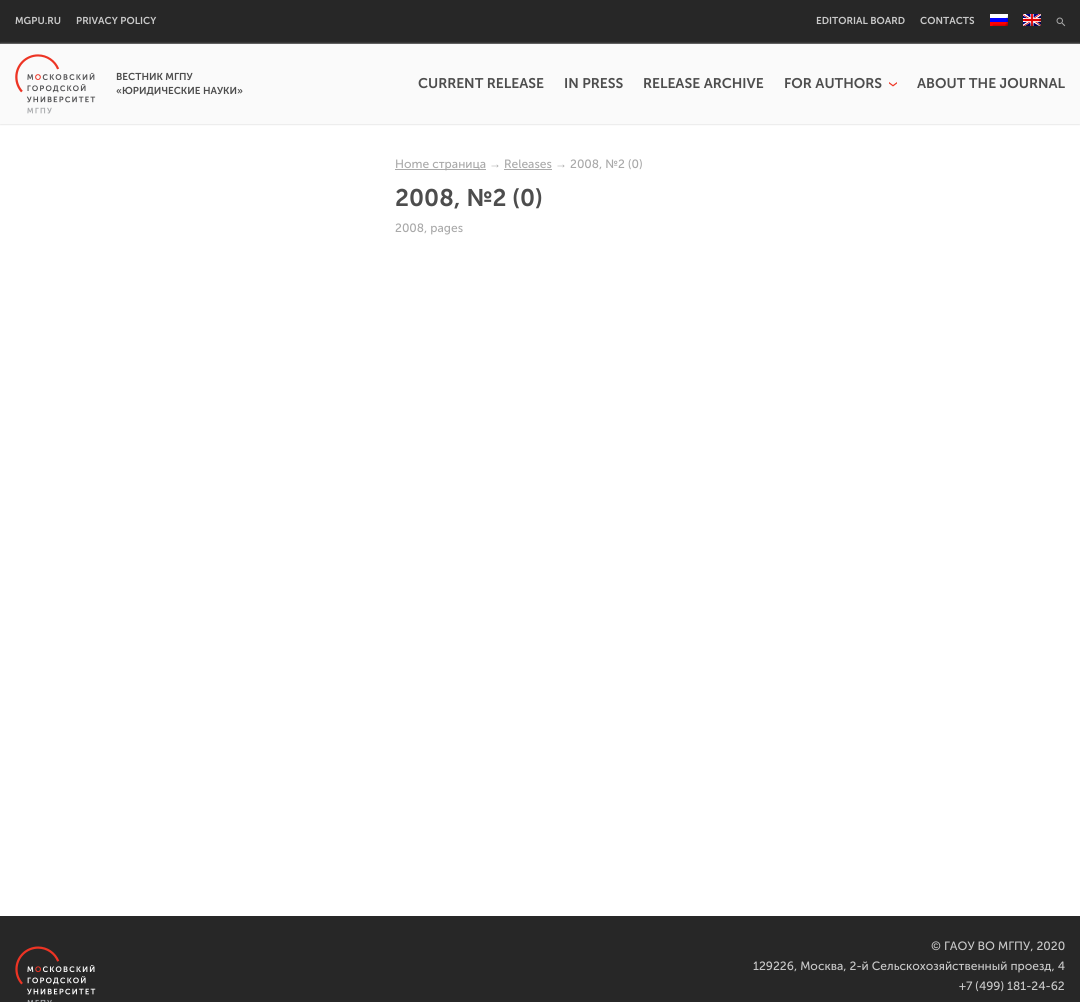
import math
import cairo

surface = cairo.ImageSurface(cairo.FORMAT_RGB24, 1080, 1002)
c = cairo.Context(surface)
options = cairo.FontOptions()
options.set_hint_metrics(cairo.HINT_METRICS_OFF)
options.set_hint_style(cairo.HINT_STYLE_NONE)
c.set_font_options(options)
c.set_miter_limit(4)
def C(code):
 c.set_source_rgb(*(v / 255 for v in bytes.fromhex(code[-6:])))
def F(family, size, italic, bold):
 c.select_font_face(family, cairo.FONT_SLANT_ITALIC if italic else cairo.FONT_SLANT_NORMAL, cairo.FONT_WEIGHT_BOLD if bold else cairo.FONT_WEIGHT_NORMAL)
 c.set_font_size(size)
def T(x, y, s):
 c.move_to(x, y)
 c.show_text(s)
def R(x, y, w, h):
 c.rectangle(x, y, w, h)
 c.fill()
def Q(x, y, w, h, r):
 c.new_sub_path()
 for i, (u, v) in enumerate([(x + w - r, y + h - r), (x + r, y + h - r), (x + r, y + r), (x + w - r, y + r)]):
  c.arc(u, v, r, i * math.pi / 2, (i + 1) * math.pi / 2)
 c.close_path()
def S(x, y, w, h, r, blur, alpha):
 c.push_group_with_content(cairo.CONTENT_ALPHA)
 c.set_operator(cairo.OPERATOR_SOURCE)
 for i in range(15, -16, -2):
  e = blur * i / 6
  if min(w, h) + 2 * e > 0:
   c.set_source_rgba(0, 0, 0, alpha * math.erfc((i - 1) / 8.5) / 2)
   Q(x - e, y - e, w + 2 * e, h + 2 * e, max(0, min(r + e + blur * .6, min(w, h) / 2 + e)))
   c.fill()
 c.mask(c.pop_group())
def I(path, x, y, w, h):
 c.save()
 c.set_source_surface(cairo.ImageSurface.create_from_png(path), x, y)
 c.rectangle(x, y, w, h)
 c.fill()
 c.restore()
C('ffffff')
c.paint()
C('272727')
R(0,0,1080,44)
F('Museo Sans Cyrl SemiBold',10,0,0)
C('c9c9c9')
T(15,24,'MGPU.RU')
T(76,24,'PRIVACY POLICY')
T(816,24,'EDITORIAL BOARD')
T(920,24,'CONTACTS')
I('1.png',990,14,18,12)
I('2.png',1023,14,18,12)
I('3.png',1056,17,10,10)
C('cccccc')
S(0,44,1080,80,0,1,1)
C('fafafa')
R(0,44,1080,80)
I('4.png',15,54,81,60)
C('4d4d4d')
T(116,80,'ВЕСТНИК МГПУ')
T(116,94,'«ЮРИДИЧЕСКИЕ НАУКИ»')
F('Museo Sans Cyrl SemiBold',14,0,0)
T(418,88,'CURRENT RELEASE')
T(564,88,'IN PRESS')
T(643,88,'RELEASE ARCHIVE')
T(784,88,'FOR AUTHORS')
I('5.png',889,82,8,5)
T(917,88,'ABOUT THE JOURNAL')
C('a9a9a9')
R(395,169,91,1)
F('Museo Sans Cyrl',12,0,0)
T(395,168,'Home страница')
F('Liberation Serif',12,0,0)
T(489,168,'→')
F('Museo Sans Cyrl',12,0,0)
T(504,168,'Releases')
R(504,169,48,1)
F('Liberation Serif',12,0,0)
T(555,168,'→')
F('Museo Sans Cyrl',12,0,0)
T(570,168,'2008, №2 (0)')
F('Museo Sans Cyrl SemiBold',24,0,0)
C('4d4d4d')
T(395,206,'2008, №2 (0)')
F('Museo Sans Cyrl',12,0,0)
C('a9a9a9')
T(395,232,'2008, pages')
C('272727')
R(0,916,1080,86)
I('6.png',15,946,81,56)
C('c9c9c9')
T(931,950,'© ГАОУ ВО МГПУ, 2020')
T(753,970,'129226, Москва, 2-й Сельскохозяйственный проезд, 4')
T(959,990,'+7 (499) 181-24-62')
surface.write_to_png('o.png')
